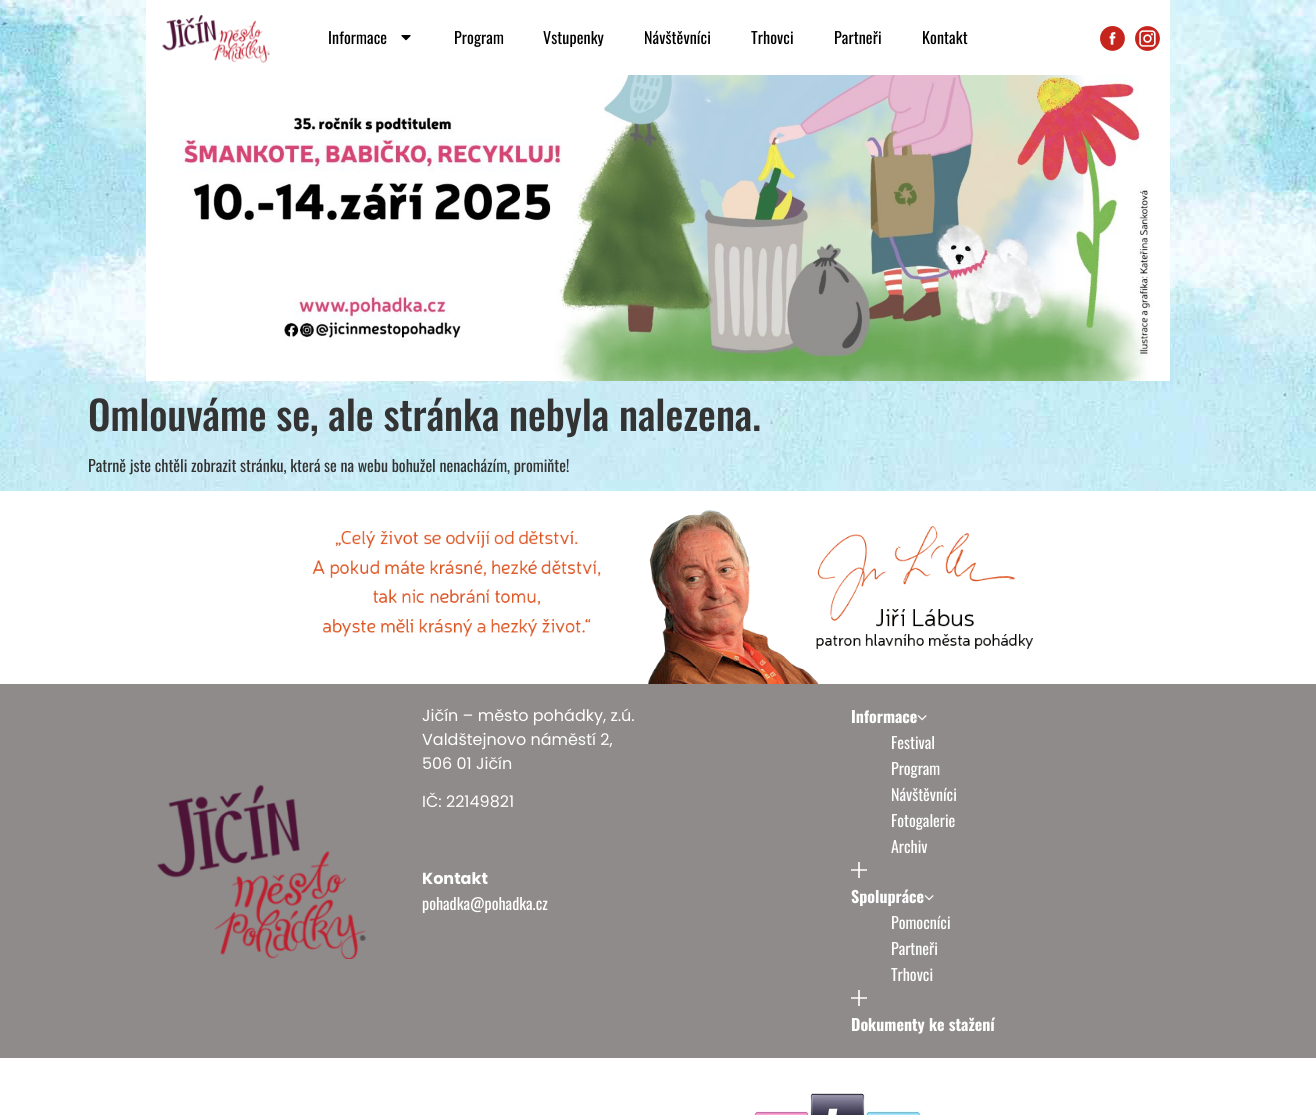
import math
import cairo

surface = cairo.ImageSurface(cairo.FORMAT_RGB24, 1316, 1115)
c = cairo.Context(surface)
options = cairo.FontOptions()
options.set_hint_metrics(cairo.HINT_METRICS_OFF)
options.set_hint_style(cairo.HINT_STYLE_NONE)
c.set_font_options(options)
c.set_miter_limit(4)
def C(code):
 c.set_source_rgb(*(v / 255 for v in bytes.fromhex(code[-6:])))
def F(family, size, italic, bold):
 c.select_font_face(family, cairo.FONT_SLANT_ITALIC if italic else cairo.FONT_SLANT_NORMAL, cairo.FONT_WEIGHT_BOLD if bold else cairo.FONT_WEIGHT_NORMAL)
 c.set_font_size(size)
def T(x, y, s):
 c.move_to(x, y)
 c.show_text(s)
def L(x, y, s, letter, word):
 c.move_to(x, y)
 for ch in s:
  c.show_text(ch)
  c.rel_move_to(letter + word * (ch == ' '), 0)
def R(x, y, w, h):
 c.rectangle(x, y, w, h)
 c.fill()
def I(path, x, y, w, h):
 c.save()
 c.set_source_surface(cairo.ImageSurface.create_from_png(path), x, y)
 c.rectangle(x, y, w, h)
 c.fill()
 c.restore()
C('ffffff')
c.paint()
I('1.png',0,0,1316,491)
C('ffffff')
R(146,0,1024,75)
I('2.png',162,15,108,48)
F('Oswald',16,0,0)
C('000000')
L(328,44,'Informace',.1,0)
I('3.png',401,35,10,6)
L(454,44,'Program',.1,0)
L(543,44,'Vstupenky',.1,0)
L(644,44,'Návštěvníci',.1,0)
L(751,44,'Trhovci',.1,0)
L(834,44,'Partneři',.1,0)
L(922,44,'Kontakt',.1,0)
I('4.png',1100,26,25,25)
I('5.png',1135,26,25,25)
I('6.png',146,75,1024,306)
F('Oswald Medium',40,0,0)
C('333333')
T(88,431,'Omlouváme se, ale stránka nebyla nalezena.')
F('Oswald',16,0,0)
T(88,472,'Patrně jste chtěli zobrazit stránku, která se na webu bohužel nenacházím, promiňte!')
I('7.png',312,509,721,175)
C('8f8b8b')
R(0,684,1316,374)
I('8.png',157,784,209,175)
F('Poppins',16,0,0)
C('ffffff')
T(422,721,'Jičín – město pohádky, z.ú.')
T(422,745,'Valdštejnovo náměstí 2,')
T(422,769,'506 01 Jičín')
T(422,807,'IČ: 22149821')
F('Poppins',16,0,1)
T(422,884,'Kontakt')
F('Oswald',16,0,0)
T(422,910,'pohadka@pohadka.cz')
F('Oswald',16,0,1)
T(851,723,'Informace')
I('9.png',917,715,10,6)
F('Oswald',16,0,0)
T(891,749,'Festival')
T(891,775,'Program')
T(891,801,'Návštěvníci')
T(891,827,'Fotogalerie')
T(891,853,'Archiv')
I('10.png',851,862,16,16)
F('Oswald',16,0,1)
T(851,903,'Spolupráce')
I('9.png',924,895,10,6)
F('Oswald',16,0,0)
T(891,929,'Pomocníci')
T(891,955,'Partneři')
T(891,981,'Trhovci')
I('10.png',851,990,16,16)
F('Oswald',16,0,1)
T(851,1031,'Dokumenty ke stažení')
I('11.png',751,1092,172,23)
surface.write_to_png('o.png')
